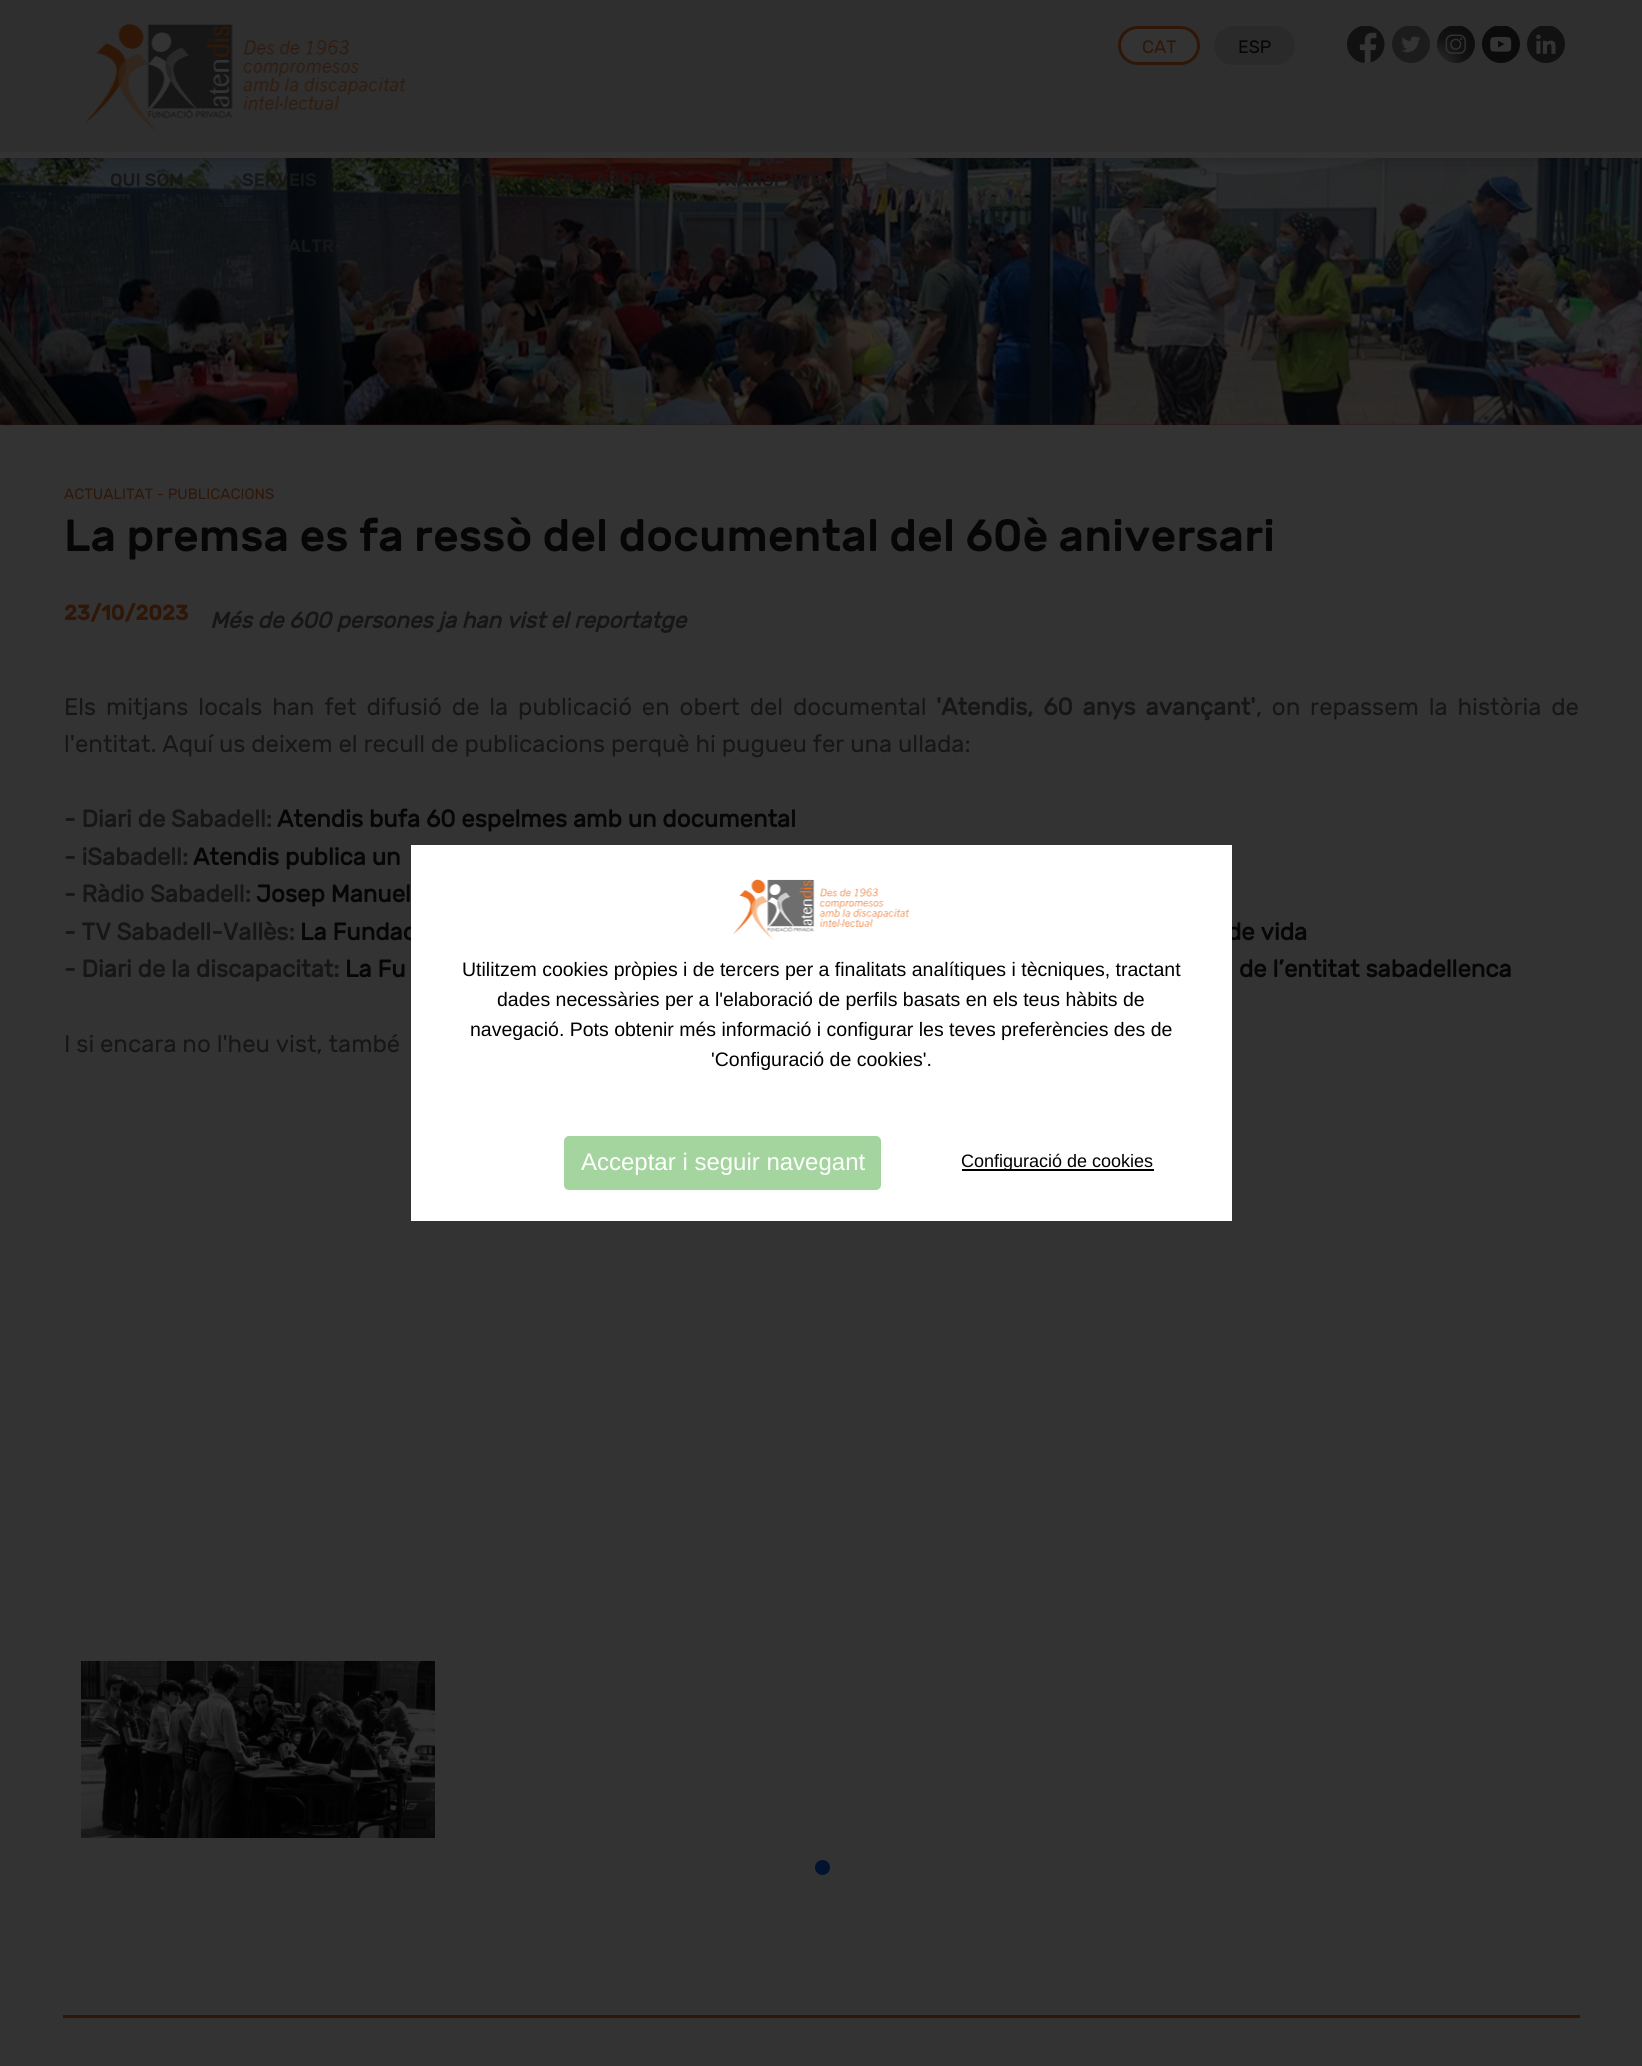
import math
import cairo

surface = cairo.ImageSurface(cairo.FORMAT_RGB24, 1642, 2066)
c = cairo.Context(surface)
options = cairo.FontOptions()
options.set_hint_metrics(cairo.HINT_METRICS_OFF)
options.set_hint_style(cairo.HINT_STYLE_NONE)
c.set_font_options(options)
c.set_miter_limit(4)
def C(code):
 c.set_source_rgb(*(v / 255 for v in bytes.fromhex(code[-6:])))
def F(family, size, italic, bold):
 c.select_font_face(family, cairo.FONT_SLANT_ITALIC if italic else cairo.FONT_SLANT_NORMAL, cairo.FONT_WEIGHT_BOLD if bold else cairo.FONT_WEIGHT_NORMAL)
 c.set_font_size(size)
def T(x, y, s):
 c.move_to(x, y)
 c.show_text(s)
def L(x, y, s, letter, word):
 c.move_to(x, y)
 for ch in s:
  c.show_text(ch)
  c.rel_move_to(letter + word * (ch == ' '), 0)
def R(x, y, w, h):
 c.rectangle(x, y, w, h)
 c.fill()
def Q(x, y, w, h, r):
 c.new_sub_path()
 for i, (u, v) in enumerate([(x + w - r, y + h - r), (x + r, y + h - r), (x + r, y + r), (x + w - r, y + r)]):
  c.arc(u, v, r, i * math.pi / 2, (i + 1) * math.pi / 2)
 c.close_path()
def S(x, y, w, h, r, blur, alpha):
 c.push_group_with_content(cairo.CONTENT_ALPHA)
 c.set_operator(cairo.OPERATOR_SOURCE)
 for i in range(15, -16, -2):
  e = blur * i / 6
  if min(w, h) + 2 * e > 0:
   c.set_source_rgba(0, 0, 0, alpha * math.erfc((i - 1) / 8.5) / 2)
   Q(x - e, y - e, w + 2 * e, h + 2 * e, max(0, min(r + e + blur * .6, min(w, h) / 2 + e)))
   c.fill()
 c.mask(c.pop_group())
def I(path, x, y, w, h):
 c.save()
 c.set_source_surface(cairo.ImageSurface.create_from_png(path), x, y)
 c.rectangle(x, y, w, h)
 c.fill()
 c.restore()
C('333333')
c.paint()
gradient = cairo.LinearGradient(304,-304,1338,729)
gradient.add_color_stop_rgba(0,0.184,0.09,0.027,1)
gradient.add_color_stop_rgba(1,0.173,0.031,0.031,1)
c.set_source(gradient)
Q(0,0,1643,425,6)
c.fill()
I('1.png',0,158,1642,267)
C('070708')
S(15,30,1613,128,0,7.5,.3)
C('2f2f2f')
R(0,0,1642,152)
C('333333')
R(0,152,1642,6)
I('2.png',84,24,322,109)
Q(1119.5,27.5,79,36,18)
c.fill_preserve()
C('2f1708')
c.set_line_width(3)
c.stroke()
F('Rubik',18,0,0)
T(1142,53,'CAT')
C('2a2a2a')
Q(1214,26,81,39,19.5)
c.fill()
C('060606')
T(1238,53,'ESP')
I('3.png',1347,26,38,37)
I('4.png',1392,26,38,37)
I('5.png',1437,26,38,37)
I('6.png',1482,26,38,37)
I('7.png',1527,26,38,37)
F('Rubik Medium',18,0,0)
C('161616')
T(110,186,'QUI SOM')
T(242,186,'SERVEIS')
T(374,186,'ACTUALITAT')
T(543,186,'COL·LABORA')
T(714,186,'TRANSPARÈNCIA')
T(288,252,'ALTR')
F('Rubik',15,0,0)
C('2f1708')
T(64,499,'ACTUALITAT - PUBLICACIONS')
F('Rubik Medium',45,0,0)
C('060606')
T(64,551,'La premsa es fa ressò del documental del 60è aniversari')
F('Rubik',21,0,1)
C('2f1708')
T(64,620,'23/10/2023')
F('Rubik',22.5,1,1)
C('161616')
T(210,628,'Més de 600 persones ja han vist el reportatge')
F('Rubik',24,0,0)
L(64,715,'Els mitjans locals han fet difusió de la publicació en obert del documental',0,4)
F('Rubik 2',24,0,1)
L(936,715,'\'Atendis, 60 anys avançant\'',0,4)
F('Rubik',24,0,0)
L(1256,715,', on repassem la història de',0,4)
T(64,752,'l\'entitat. Aquí us deixem el recull de publicacions perquè hi pugueu fer una ullada:')
F('Rubik 2',24,0,1)
T(64,827,'- Diari de Sabadell:')
C('060606')
T(277,827,'Atendis bufa 60 espelmes amb un documental')
C('161616')
T(64,865,'- iSabadell:')
C('060606')
T(193,865,'Atendis publica un')
C('161616')
T(64,902,'- Ràdio Sabadell:')
C('060606')
T(256,902,'Josep Manuel')
C('161616')
T(64,940,'- TV Sabadell-Vallès:')
C('060606')
T(300,940,'La Fundac')
T(1227,940,'de vida')
C('161616')
T(64,977,'- Diari de la discapacitat:')
C('060606')
T(345,977,'La Fu')
T(1239,977,'de l’entitat sabadellenca')
F('Rubik',24,0,0)
C('161616')
T(64,1052,'I si encara no l\'heu vist, també')
I('8.png',81,1661,354,177)
C('01132e')
c.arc(822.5,1867.5,7.5,0,2 * math.pi)
c.fill()
C('2f1707')
R(63,2015,1517,3)
C('ffffff')
R(411,845,821,376)
I('9.png',733,879,177,61)
F('Liberation Sans',19.5,0,0)
C('000000')
T(462,976,'Utilitzem cookies pròpies i de tercers per a finalitats analítiques i tècniques, tractant')
T(497,1006,'dades necessàries per a l\'elaboració de perfils basats en els teus hàbits de')
T(470,1036,'navegació. Pots obtenir més informació i configurar les teves preferències des de')
T(711,1066,'\'Configuració de cookies\'.')
C('a4d59f')
Q(565,1137,315,52,4)
c.fill_preserve()
c.set_line_width(2)
c.stroke()
F('Liberation Sans',24,0,0)
C('ffffff')
T(581,1170,'Acceptar i seguir navegant')
C('000000')
R(962,1169,192,2)
F('Liberation Sans',18,0,0)
T(961,1167,'Configuració de cookies')
surface.write_to_png('o.png')
